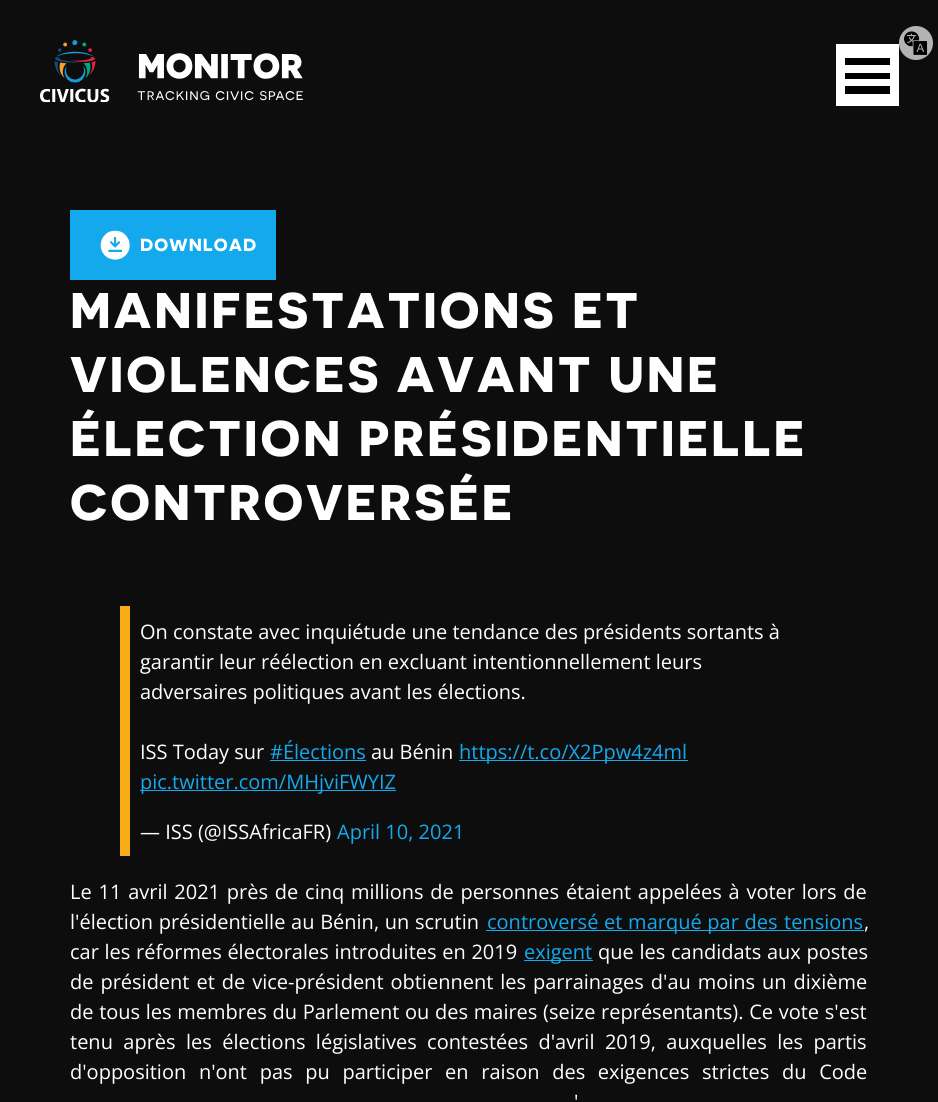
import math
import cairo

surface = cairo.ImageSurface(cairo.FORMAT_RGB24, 938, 1102)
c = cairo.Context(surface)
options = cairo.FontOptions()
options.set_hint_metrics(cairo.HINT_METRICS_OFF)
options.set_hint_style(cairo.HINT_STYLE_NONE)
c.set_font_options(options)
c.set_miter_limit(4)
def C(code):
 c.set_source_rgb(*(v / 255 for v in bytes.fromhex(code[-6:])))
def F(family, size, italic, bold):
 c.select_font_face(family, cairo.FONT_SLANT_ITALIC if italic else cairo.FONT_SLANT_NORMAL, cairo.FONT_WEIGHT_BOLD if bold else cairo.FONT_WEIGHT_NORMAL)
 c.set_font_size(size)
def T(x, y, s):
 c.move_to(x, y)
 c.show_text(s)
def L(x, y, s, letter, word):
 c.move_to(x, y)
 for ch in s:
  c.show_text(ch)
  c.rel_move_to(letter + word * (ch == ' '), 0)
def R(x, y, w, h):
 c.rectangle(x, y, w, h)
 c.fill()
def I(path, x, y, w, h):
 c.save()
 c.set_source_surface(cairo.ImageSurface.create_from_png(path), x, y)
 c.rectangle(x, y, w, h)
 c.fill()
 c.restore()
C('0d0d0d')
c.paint()
I('1.png',40,40,263,63)
C('ffffff')
R(836,44,63,62)
C('000000')
R(845,73,45,6)
R(845,58,45,7)
R(845,86,45,8)
C('b3b3b3')
c.arc(916,43,17,0,2 * math.pi)
c.fill()
I('2.png',904,31,24,24)
C('14a9ed')
R(70,210,206,70)
I('3.png',100,230,30,30)
F('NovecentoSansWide',17.5,0,0)
C('ffffff')
L(140,251,'DOWNLOAD',1,0)
F('NovecentoSansWide',50,0,0)
L(70,328,'MANIFESTATIONS ET',2.75,0)
L(70,392,'VIOLENCES AVANT UNE',2.75,0)
L(70,456,'ÉLECTION PRÉSIDENTIELLE',2.75,0)
L(70,520,'CONTROVERSÉE',2.75,0)
C('f6ab17')
R(120,606,10,250)
F('Open Sans',20,0,0)
C('ffffff')
T(140,639,'On constate avec inquiétude une tendance des présidents sortants à')
T(140,669,'garantir leur réélection en excluant intentionnellement leurs')
T(140,699,'adversaires politiques avant les élections.')
T(140,759,'ISS Today sur')
C('14a9ed')
T(270,759,'#Élections')
R(270,760,96,1)
C('ffffff')
T(371,759,'au Bénin')
C('14a9ed')
R(459,760,229,1)
T(459,759,'https://t.co/X2Ppw4z4ml')
R(140,790,256,1)
T(140,789,'pic.twitter.com/MHjviFWYIZ')
C('ffffff')
T(140,839,'— ISS (@ISSAfricaFR)')
C('14a9ed')
T(337,839,'April 10, 2021')
C('ffffff')
L(70,899,'Le 11 avril 2021 près de cinq millions de personnes étaient appelées à voter lors de',0,1.6)
L(70,929,'l\'élection présidentielle au Bénin, un scrutin',0,.5)
C('14a9ed')
R(486,930,378,1)
L(487,929,'controversé et marqué par des',0,.5)
T(784,929,'tensions')
C('ffffff')
T(864,929,',')
L(70,959,'car les réformes électorales introduites en 2019',0,.5)
C('14a9ed')
R(524,960,69,1)
T(524,959,'exigent')
C('ffffff')
L(598,959,'que les candidats aux postes',0,.5)
L(70,989,'de président et de vice-président obtiennent les parrainages d\'au moins un dixième',0,1.75)
L(70,1019,'de tous les membres du Parlement ou des maires (seize représentants). Ce vote s\'est',0,.5)
L(70,1049,'tenu après les élections législatives contestées d\'avril 2019, auxquelles les partis',0,5.25)
L(70,1079,'d\'opposition n\'ont pas pu participer en raison des exigences strictes du Code',0,7.5)
L(574,1109,'\'',0,9)
surface.write_to_png('o.png')
